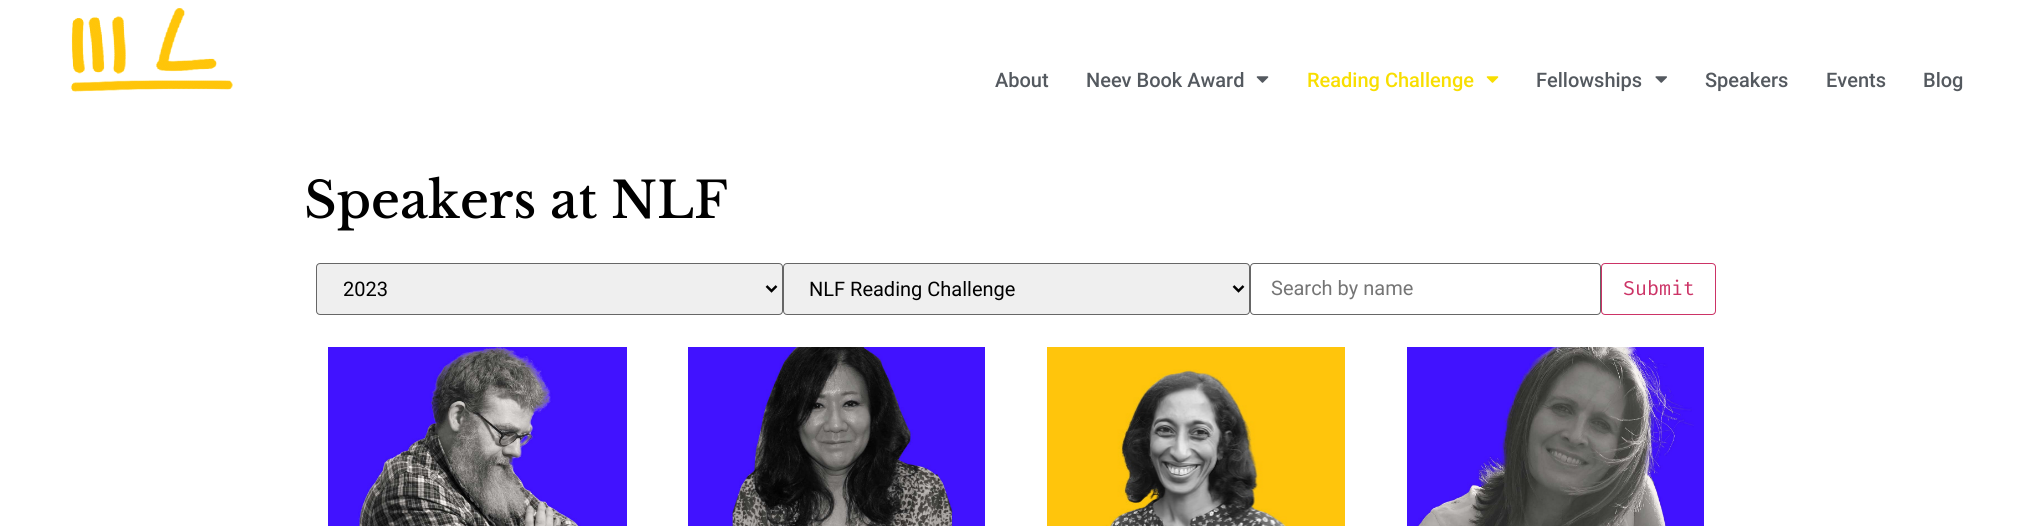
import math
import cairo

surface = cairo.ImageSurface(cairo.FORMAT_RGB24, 2032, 526)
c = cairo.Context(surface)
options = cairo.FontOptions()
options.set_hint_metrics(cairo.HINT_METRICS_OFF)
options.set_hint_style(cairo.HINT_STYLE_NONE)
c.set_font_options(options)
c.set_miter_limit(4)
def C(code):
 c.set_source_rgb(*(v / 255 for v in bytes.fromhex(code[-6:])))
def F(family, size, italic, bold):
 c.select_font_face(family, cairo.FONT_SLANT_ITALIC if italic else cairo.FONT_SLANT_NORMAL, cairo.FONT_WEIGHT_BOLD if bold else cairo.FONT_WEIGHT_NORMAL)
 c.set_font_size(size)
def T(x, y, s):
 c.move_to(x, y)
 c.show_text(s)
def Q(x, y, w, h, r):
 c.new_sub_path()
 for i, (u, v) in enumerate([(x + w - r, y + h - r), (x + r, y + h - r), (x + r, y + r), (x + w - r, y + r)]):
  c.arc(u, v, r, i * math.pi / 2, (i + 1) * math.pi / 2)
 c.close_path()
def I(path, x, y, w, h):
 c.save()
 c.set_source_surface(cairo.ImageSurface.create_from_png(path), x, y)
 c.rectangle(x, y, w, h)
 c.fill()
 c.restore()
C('ffffff')
c.paint()
I('1.png',70,8,163,84)
F('Roboto Medium',20,0,0)
C('54595f')
T(995,87,'About')
T(1086,87,'Neev Book Award')
I('2.png',1256,76,13,7)
C('f8de00')
T(1307,87,'Reading Challenge')
I('3.png',1486,76,13,7)
C('54595f')
T(1536,87,'Fellowships')
I('4.png',1655,76,12,7)
T(1705,87,'Speakers')
T(1826,87,'Events')
T(1923,87,'Blog')
F('Libre Baskerville Medium',50,0,0)
C('000000')
T(304,218,'Speakers at NLF')
C('efefef')
Q(316.5,263.5,466,51,3.5)
c.fill_preserve()
C('666666')
c.set_line_width(1)
c.stroke()
c.new_path()
c.move_to(766.5,286)
c.line_to(771.5,291)
c.line_to(776.5,286)
C('000000')
c.set_line_width(2.5)
c.stroke()
F('Roboto',20,0,0)
T(343,296,'2023')
C('efefef')
Q(783.5,263.5,466,51,3.5)
c.fill_preserve()
C('666666')
c.set_line_width(1)
c.stroke()
c.new_path()
c.move_to(1233.5,286)
c.line_to(1238.5,291)
c.line_to(1243.5,286)
C('000000')
c.set_line_width(2.5)
c.stroke()
T(809,296,'NLF Reading Challenge')
Q(1250.5,263.5,350,51,3.5)
C('666666')
c.set_line_width(1)
c.stroke()
C('757575')
T(1271,295,'Search by name')
Q(1601.5,263.5,114,51,3.5)
C('cc3366')
c.stroke()
F('Fira Mono',20,0,0)
T(1623,295,'Submit')
I('5.png',328,347,299,179)
I('6.png',688,347,297,179)
I('7.png',1047,347,298,179)
I('8.png',1407,347,297,179)
surface.write_to_png('o.png')
